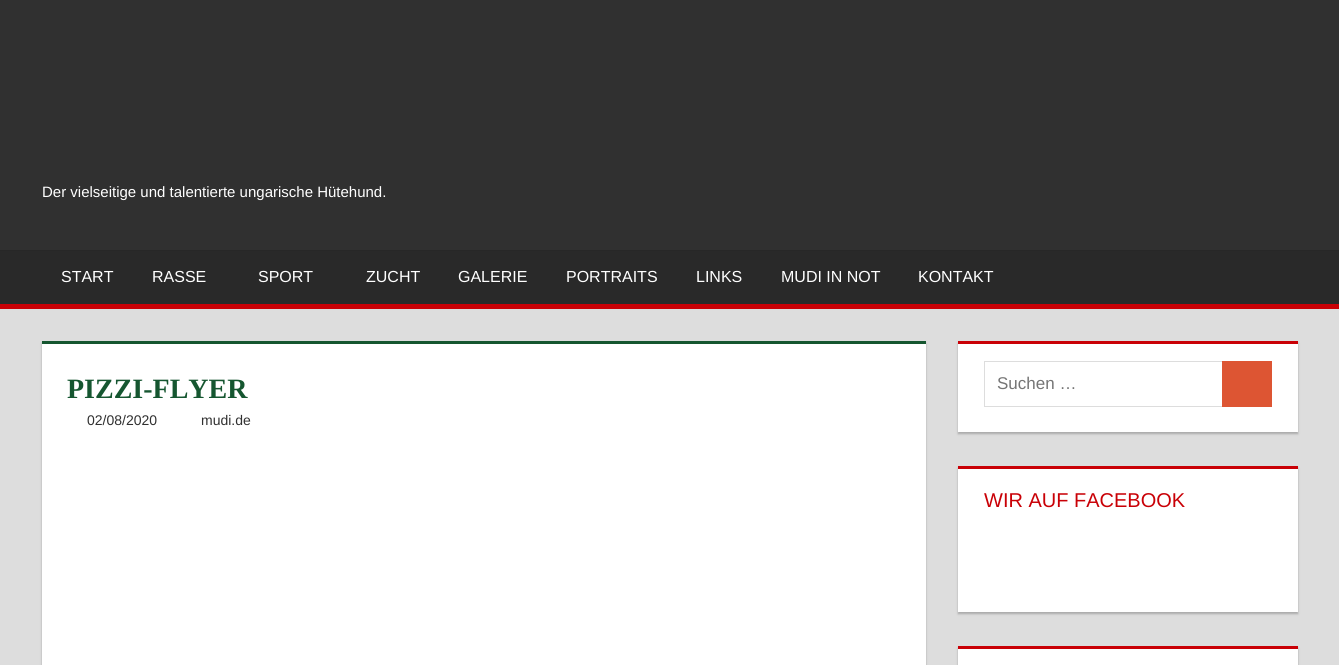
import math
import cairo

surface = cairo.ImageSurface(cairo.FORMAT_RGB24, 1339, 665)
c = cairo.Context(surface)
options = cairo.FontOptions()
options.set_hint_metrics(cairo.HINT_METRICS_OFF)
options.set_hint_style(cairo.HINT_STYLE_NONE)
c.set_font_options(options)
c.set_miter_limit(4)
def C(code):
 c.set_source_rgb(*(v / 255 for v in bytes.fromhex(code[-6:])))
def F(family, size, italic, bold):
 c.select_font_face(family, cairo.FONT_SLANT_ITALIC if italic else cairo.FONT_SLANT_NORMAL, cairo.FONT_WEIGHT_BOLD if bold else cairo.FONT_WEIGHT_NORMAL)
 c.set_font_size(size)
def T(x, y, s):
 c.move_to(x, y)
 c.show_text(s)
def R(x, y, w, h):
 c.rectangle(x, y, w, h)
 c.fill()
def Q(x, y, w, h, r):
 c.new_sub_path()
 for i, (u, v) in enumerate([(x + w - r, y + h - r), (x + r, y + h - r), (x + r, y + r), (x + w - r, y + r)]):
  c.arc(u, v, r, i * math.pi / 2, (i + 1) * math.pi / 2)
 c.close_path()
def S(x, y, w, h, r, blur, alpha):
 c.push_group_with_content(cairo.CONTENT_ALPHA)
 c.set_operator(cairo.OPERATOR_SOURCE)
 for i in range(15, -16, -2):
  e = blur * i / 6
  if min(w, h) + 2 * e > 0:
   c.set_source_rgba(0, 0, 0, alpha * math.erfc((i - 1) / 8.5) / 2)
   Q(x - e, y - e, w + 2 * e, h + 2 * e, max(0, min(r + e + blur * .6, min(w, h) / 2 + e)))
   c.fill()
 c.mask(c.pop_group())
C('dddddd')
c.paint()
C('303030')
R(0,0,1339,250)
F('Liberation Sans',15,0,0)
C('ffffff')
T(42,197,'Der vielseitige und talentierte ungarische Hütehund.')
C('292929')
R(0,251,1339,53)
C('272727')
R(0,250,1339,1)
C('c90006')
R(0,304,1339,5)
F('Liberation Sans',16,0,0)
C('ffffff')
T(61,282,'START')
T(152,282,'RASSE')
T(258,282,'SPORT')
T(366,282,'ZUCHT')
T(458,282,'GALERIE')
T(566,282,'PORTRAITS')
T(696,282,'LINKS')
T(781,282,'MUDI IN NOT')
T(918,282,'KONTAKT')
C('aaaaaa')
S(42,343,884,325,0,1,1)
C('ffffff')
R(42,344,884,321)
C('155630')
R(42,341,884,3)
F('Liberation Serif',28,0,1)
T(67,398,'PIZZI-FLYER')
F('Liberation Sans',14,0,0)
C('303030')
T(87,425,'02/08/2020')
T(201,425,'mudi.de')
C('aaaaaa')
S(958,343,340,91,0,1,1)
C('ffffff')
R(958,344,340,88)
C('c90006')
R(958,341,340,3)
c.rectangle(984.5,361.5,238,45)
C('dddddd')
c.set_line_width(1)
c.stroke()
F('Liberation Sans',17,0,0)
C('757575')
T(997,389,'Suchen …')
C('dd5533')
R(1222,361,50,46)
C('aaaaaa')
S(958,468,340,146,0,1,1)
C('ffffff')
R(958,469,340,143)
C('c90006')
R(958,466,340,3)
F('Liberation Sans',20,0,0)
T(984,507,'WIR AUF FACEBOOK')
C('aaaaaa')
S(958,648,340,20,0,1,1)
C('ffffff')
R(958,649,340,16)
C('c90006')
R(958,646,340,3)
surface.write_to_png('o.png')
